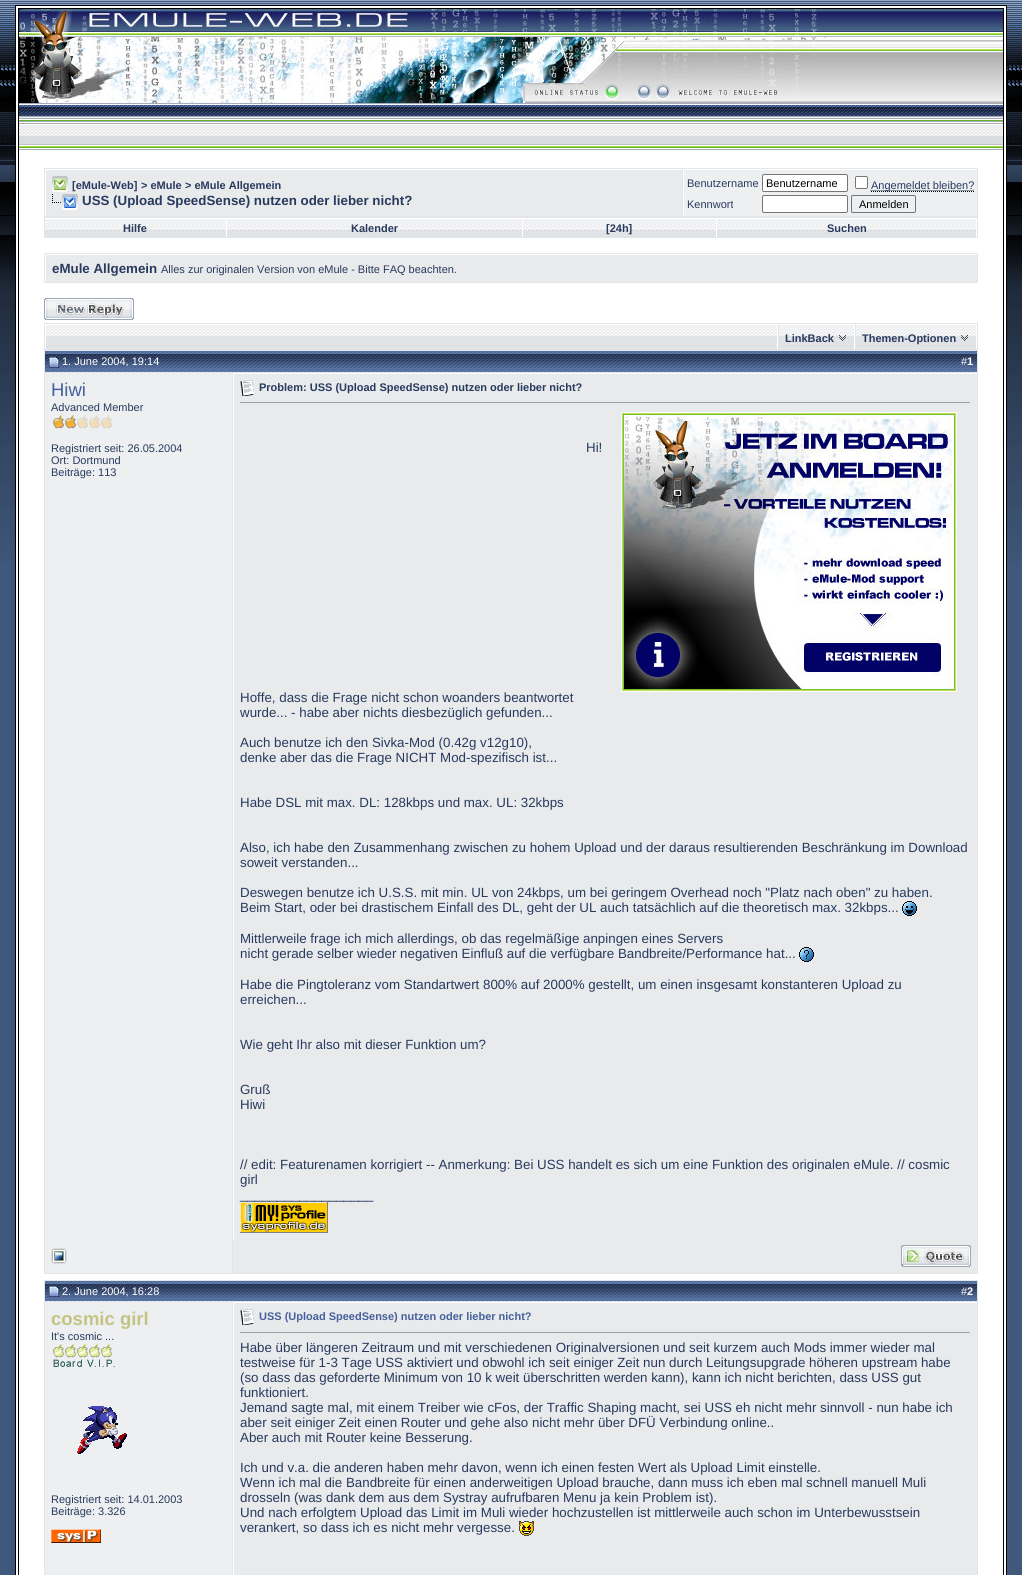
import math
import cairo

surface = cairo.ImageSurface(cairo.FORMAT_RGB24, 1022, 1575)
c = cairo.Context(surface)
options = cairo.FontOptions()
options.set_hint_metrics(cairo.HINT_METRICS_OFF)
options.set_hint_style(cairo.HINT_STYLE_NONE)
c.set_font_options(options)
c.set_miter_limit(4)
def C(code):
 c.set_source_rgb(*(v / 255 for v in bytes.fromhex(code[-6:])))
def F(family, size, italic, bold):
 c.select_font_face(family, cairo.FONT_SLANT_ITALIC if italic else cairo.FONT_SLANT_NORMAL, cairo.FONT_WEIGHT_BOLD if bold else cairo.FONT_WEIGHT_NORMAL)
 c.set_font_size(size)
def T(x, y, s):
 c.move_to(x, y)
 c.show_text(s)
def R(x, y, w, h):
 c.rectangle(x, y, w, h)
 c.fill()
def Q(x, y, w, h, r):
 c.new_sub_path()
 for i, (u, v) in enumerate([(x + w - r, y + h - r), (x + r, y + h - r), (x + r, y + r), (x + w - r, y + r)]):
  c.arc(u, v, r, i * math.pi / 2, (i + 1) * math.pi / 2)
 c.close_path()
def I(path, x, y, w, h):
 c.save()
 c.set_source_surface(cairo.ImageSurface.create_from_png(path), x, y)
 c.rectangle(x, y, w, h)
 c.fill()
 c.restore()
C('40587b')
c.paint()
I('1.png',0,0,1022,561)
C('ffffff')
c.rectangle(15.5,5.5,991,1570)
c.fill_preserve()
C('000000')
c.set_line_width(1)
c.stroke()
c.rectangle(18.5,8.5,985,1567)
c.stroke()
I('2.png',19,9,984,141)
I('3.png',19,9,807,94)
C('e3e6e8')
R(44,168,934,70)
C('e8eaec')
R(46,170,636,46)
C('ffffff')
R(45,169,637,1)
R(45,169,1,47)
I('4.png',52,176,16,16)
F('Liberation Sans',11,0,1)
C('283a5e')
T(72,189,'[eMule-Web]')
T(141,189,'> eMule')
T(185,189,'> eMule Allgemein')
I('5.png',52,194,26,16)
F('Liberation Sans',13.33,0,1)
T(82,205,'USS (Upload SpeedSense) nutzen oder lieber nicht?')
C('edeff1')
R(684,170,293,46)
C('ffffff')
R(683,169,294,1)
R(683,169,1,47)
F('Liberation Sans',11,0,0)
C('283a5e')
T(687,187,'Benutzername')
C('ffffff')
Q(762.5,174.5,85,17,1.5)
c.fill_preserve()
C('767676')
c.stroke()
C('000000')
T(766,187,'Benutzername')
C('ffffff')
Q(855.5,176.5,12,12,1.5)
c.fill_preserve()
C('767676')
c.stroke()
c.new_path()
c.move_to(871,191.5)
c.line_to(974,191.5)
C('000000')
c.set_dash([1,1])
c.stroke()
c.new_path()
c.move_to(870.5,190.5)
c.line_to(974,190.5)
C('283a5e')
c.stroke()
T(871,189,'Angemeldet bleiben?')
T(687,208,'Kennwort')
C('ffffff')
Q(762.5,195.5,85,17,1.5)
c.fill_preserve()
C('767676')
c.set_dash([])
c.stroke()
Q(851.5,195.5,64,17,1.5)
c.stroke()
C('000000')
T(859,208,'Anmelden')
I('6.png',45,219,181,18)
C('ffffff')
R(45,218,932,1)
R(226,218,1,19)
F('Liberation Sans',11,0,1)
C('283a5e')
T(123,232,'Hilfe')
I('7.png',227,219,295,18)
C('ffffff')
R(522,218,1,19)
C('283a5e')
T(351,232,'Kalender')
I('8.png',523,219,193,18)
C('ffffff')
R(716,218,1,19)
C('283a5e')
T(606,232,'[24h]')
I('9.png',717,219,259,18)
C('ffffff')
R(976,218,1,19)
C('283a5e')
T(827,232,'Suchen')
C('e3e6e8')
R(44,253,934,30)
C('e8eaec')
R(46,255,931,27)
C('ffffff')
R(45,254,932,1)
R(45,254,1,28)
F('Liberation Sans',13.33,0,1)
C('283a5e')
T(52,273,'eMule Allgemein')
F('Liberation Sans',11,0,0)
T(161,273,'Alles zur originalen Version von eMule - Bitte FAQ beachten.')
I('10.png',44,298,90,22)
C('e3e6e8')
R(44,323,934,27)
I('11.png',46,325,731,24)
C('ffffff')
R(45,324,733,1)
R(777,324,1,25)
R(45,324,1,25)
I('12.png',779,325,75,24)
R(779,324,76,1)
R(854,324,1,25)
F('Liberation Sans',11,0,1)
C('283a5e')
T(785,342,'LinkBack')
I('13.png',839,335,7,6)
I('14.png',856,325,120,24)
C('ffffff')
R(856,324,121,1)
R(976,324,1,25)
C('283a5e')
T(862,342,'Themen-Optionen')
I('15.png',961,335,7,6)
I('16.png',45,351,188,21)
C('e3e6e8')
R(44,350,934,1)
R(44,372,189,1)
R(44,350,1,889)
I('17.png',49,357,10,11)
F('Liberation Sans',11,0,0)
C('ffffff')
T(62,365,'1. June 2004, 19:14')
I('18.png',233,351,744,21)
C('e3e6e8')
R(977,350,1,924)
R(233,372,745,1)
C('ffffff')
T(961,365,'#')
F('Liberation Sans',11,0,1)
T(967,365,'1')
C('edeff1')
R(45,373,187,900)
C('e3e6e8')
R(232,373,1,901)
F('Liberation Sans',18.5,0,0)
C('45609c')
T(51,396,'Hiwi')
F('Liberation Sans',11,0,0)
C('283a5e')
T(51,411,'Advanced Member')
I('19.png',53,415,59,14)
T(51,452,'Registriert seit: 26.05.2004')
T(51,464,'Ort: Dortmund')
T(51,476,'Beiträge: 113')
C('e8eaec')
R(234,374,743,865)
I('20.png',240,380,15,16)
F('Liberation Sans',11,0,1)
C('283a5e')
T(259,391,'Problem: USS (Upload SpeedSense) nutzen oder lieber nicht?')
C('9f9f9f')
R(240,402,731,1)
C('eeeeee')
R(970,402,1,1)
I('21.png',621,412,336,280)
F('Liberation Sans',13.33,0,0)
C('283a5e')
T(586,452,'Hi!')
T(240,702,'Hoffe, dass die Frage nicht schon woanders beantwortet')
T(240,717,'wurde... - habe aber nichts diesbezüglich gefunden...')
T(240,747,'Auch benutze ich den Sivka-Mod (0.42g v12g10),')
T(240,762,'denke aber das die Frage NICHT Mod-spezifisch ist...')
T(240,807,'Habe DSL mit max. DL: 128kbps und max. UL: 32kbps')
T(240,852,'Also, ich habe den Zusammenhang zwischen zu hohem Upload und der daraus resultierenden Beschränkung im Download')
T(240,867,'soweit verstanden...')
T(240,897,'Deswegen benutze ich U.S.S. mit min. UL von 24kbps, um bei geringem Overhead noch "Platz nach oben" zu haben.')
T(240,912,'Beim Start, oder bei drastischem Einfall des DL, geht der UL auch tatsächlich auf die theoretisch max. 32kbps...')
I('22.png',902,901,15,15)
T(240,943,'Mittlerweile frage ich mich allerdings, ob das regelmäßige anpingen eines Servers')
T(240,958,'nicht gerade selber wieder negativen Einfluß auf die verfügbare Bandbreite/Performance hat...')
I('23.png',799,947,15,15)
T(240,989,'Habe die Pingtoleranz vom Standartwert 800% auf 2000% gestellt, um einen insgesamt konstanteren Upload zu')
T(240,1004,'erreichen...')
T(240,1049,'Wie geht Ihr also mit dieser Funktion um?')
T(240,1094,'Gruß')
T(240,1109,'Hiwi')
T(240,1169,'// edit: Featurenamen korrigiert -- Anmerkung: Bei USS handelt es sich um eine Funktion des originalen eMule. // cosmic')
T(240,1184,'girl')
T(240,1199,'__________________')
I('24.png',240,1202,88,31)
C('e3e6e8')
R(44,1273,934,1)
R(44,1239,1,35)
I('25.png',51,1248,16,16)
C('e8eaec')
R(233,1239,744,34)
I('26.png',901,1245,70,22)
I('27.png',45,1281,188,20)
C('e3e6e8')
R(44,1280,934,1)
R(44,1301,189,1)
R(44,1280,1,295)
I('28.png',49,1286,10,11)
F('Liberation Sans',11,0,0)
C('ffffff')
T(62,1295,'2. June 2004, 16:28')
I('29.png',233,1281,744,20)
C('e3e6e8')
R(977,1280,1,295)
R(233,1301,745,1)
C('ffffff')
T(961,1295,'#')
F('Liberation Sans',11,0,1)
T(967,1295,'2')
C('edeff1')
R(45,1302,187,273)
C('e3e6e8')
R(232,1302,1,273)
F('Liberation Sans',18.5,0,1)
C('c3c484')
T(51,1325,'cosmic girl')
F('Liberation Sans',11,0,0)
C('283a5e')
T(51,1340,'It\'s cosmic ...')
I('30.png',53,1344,62,23)
I('31.png',77,1406,50,48)
T(51,1503,'Registriert seit: 14.01.2003')
T(51,1515,'Beiträge: 3.326')
I('32.png',51,1529,50,14)
C('e8eaec')
R(234,1303,743,272)
I('20.png',240,1309,15,16)
F('Liberation Sans',11,0,1)
C('45609c')
T(259,1320,'USS (Upload SpeedSense) nutzen oder lieber nicht?')
C('9f9f9f')
R(240,1332,731,1)
C('eeeeee')
R(970,1332,1,1)
F('Liberation Sans',13.33,0,0)
C('283a5e')
T(240,1352,'Habe über längeren Zeitraum und mit verschiedenen Originalversionen und seit kurzem auch Mods immer wieder mal')
T(240,1367,'testweise für 1-3 Tage USS aktiviert und obwohl ich seit einiger Zeit nun durch Leitungsupgrade höheren upstream habe')
T(240,1382,'(so dass das geforderte Minimum von 10 k weit überschritten werden kann), kann ich nicht berichten, dass USS gut')
T(240,1397,'funktioniert.')
T(240,1412,'Jemand sagte mal, mit einem Treiber wie cFos, der Traffic Shaping macht, sei USS eh nicht mehr sinnvoll - nun habe ich')
T(240,1427,'aber seit einiger Zeit einen Router und gehe also nicht mehr über DFÜ Verbindung online..')
T(240,1442,'Aber auch mit Router keine Besserung.')
T(240,1472,'Ich und v.a. die anderen haben mehr davon, wenn ich einen festen Wert als Upload Limit einstelle.')
T(240,1487,'Wenn ich mal die Bandbreite für einen anderweitigen Upload brauche, dann muss ich eben mal schnell manuell Muli')
T(240,1502,'drosseln (was dank dem aus dem Systray aufrufbaren Menu ja kein Problem ist).')
T(240,1517,'Und nach erfolgtem Upload das Limit im Muli wieder hochzustellen ist mittlerweile auch schon im Unterbewusstsein')
T(240,1532,'verankert, so dass ich es nicht mehr vergesse.')
I('33.png',519,1521,15,15)
surface.write_to_png('o.png')
